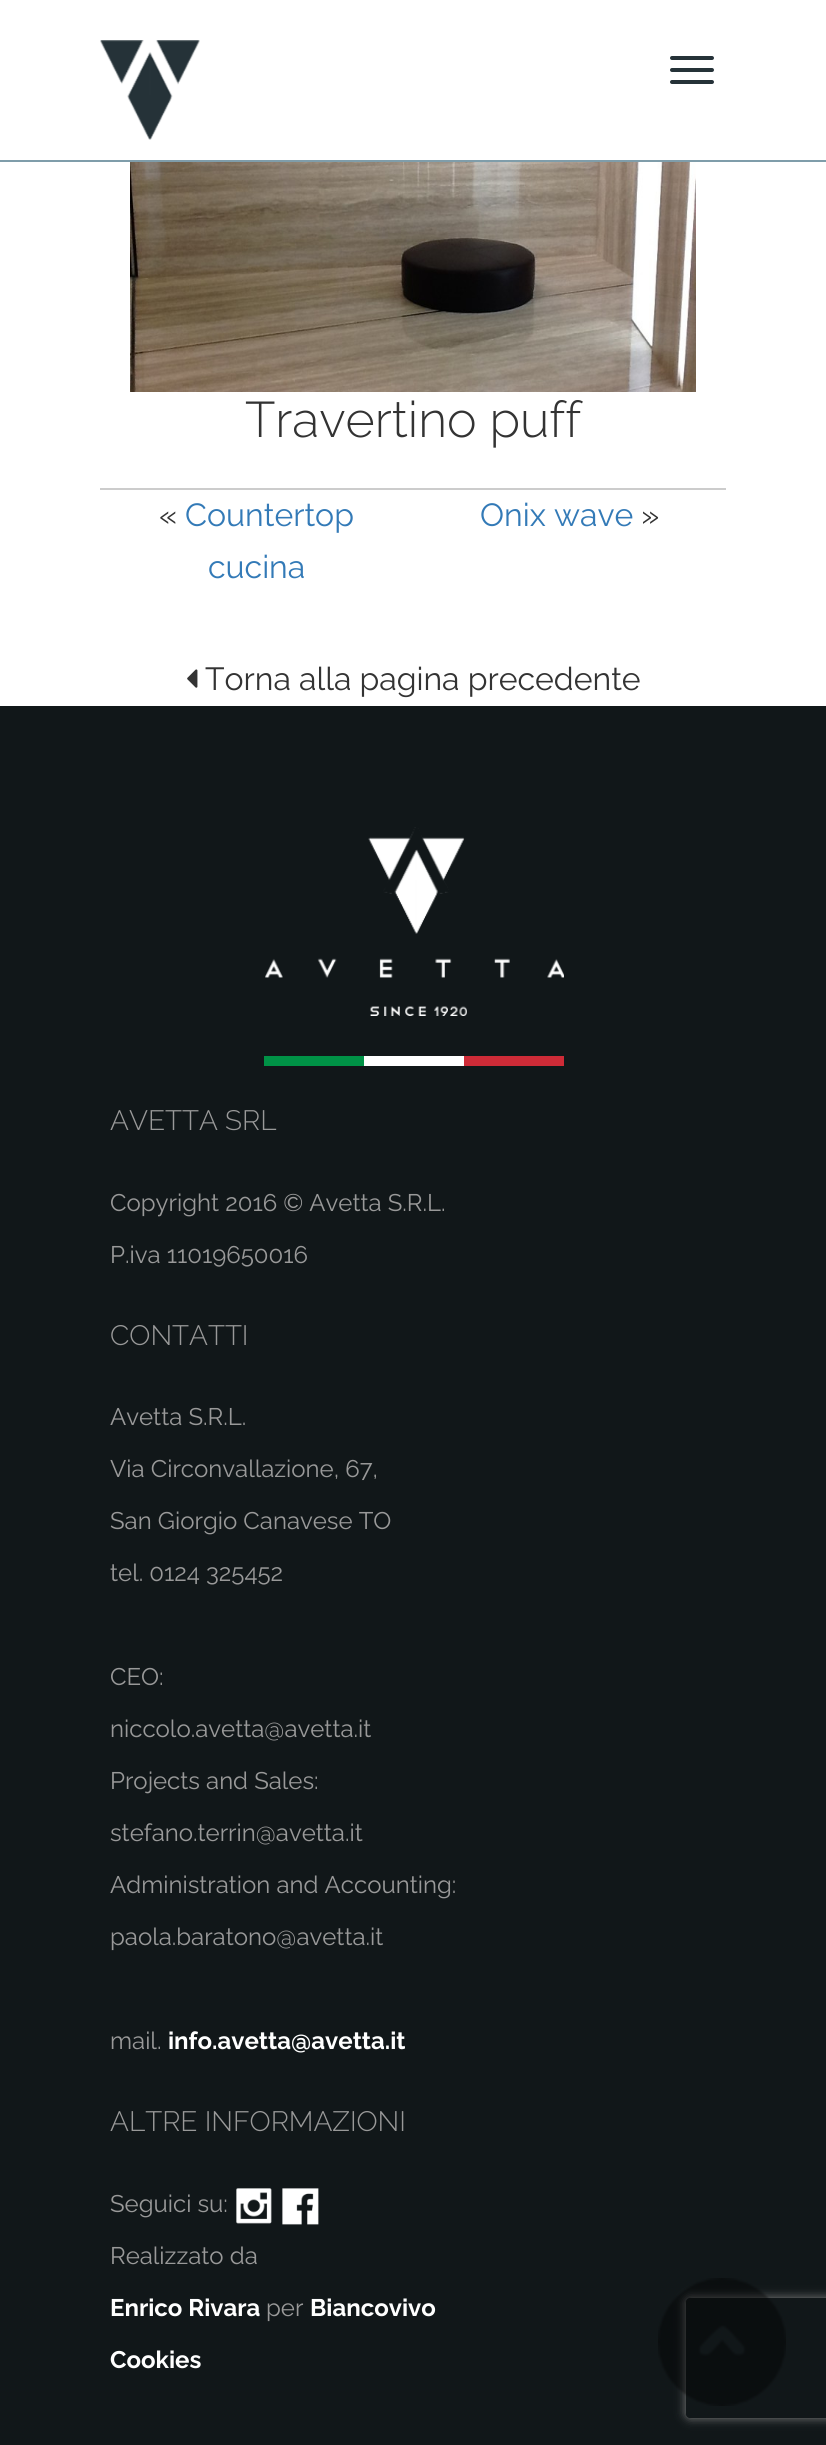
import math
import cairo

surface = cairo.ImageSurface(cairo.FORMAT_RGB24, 826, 2445)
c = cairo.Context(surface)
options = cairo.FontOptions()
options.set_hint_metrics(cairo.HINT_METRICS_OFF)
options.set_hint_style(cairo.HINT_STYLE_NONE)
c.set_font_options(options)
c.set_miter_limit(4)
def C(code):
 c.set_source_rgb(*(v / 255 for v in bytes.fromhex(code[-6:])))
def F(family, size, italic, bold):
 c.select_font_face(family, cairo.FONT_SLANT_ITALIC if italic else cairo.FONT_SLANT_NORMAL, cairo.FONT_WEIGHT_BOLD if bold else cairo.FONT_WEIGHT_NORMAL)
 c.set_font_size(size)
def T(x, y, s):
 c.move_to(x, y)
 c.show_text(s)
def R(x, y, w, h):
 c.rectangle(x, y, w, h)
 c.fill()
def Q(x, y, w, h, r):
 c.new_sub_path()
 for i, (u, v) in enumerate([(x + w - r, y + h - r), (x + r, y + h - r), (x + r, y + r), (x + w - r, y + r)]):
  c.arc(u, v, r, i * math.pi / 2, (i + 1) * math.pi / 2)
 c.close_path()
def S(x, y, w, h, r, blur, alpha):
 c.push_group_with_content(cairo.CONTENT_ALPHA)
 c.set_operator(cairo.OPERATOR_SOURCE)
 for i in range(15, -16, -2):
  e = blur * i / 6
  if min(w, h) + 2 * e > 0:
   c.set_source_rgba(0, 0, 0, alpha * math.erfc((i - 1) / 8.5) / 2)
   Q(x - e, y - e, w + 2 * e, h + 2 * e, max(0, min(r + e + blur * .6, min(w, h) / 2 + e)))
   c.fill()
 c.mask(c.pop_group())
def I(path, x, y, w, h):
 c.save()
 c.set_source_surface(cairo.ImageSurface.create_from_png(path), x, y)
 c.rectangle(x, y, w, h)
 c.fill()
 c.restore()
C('ffffff')
c.paint()
C('7f9daa')
R(0,160,826,2)
I('1.png',100,40,100,100)
C('253238')
Q(670,56,44,4,2)
c.fill()
Q(670,68,44,4,2)
c.fill()
Q(670,80,44,4,2)
c.fill()
I('2.png',130,162,566,230)
F('Raleway Light',50,0,0)
C('333333')
T(245,437,'Travertino puff')
C('cccccc')
R(100,488,626,2)
F('Raleway',32,0,0)
C('333333')
T(159,526,'«')
C('337ab7')
T(185,526,'Countertop')
T(208,578,'cucina')
T(480,526,'Onix wave')
C('333333')
T(641,526,'»')
I('3.png',187,669,11,19)
T(205,690,'Torna alla pagina precedente')
C('111719')
R(0,706,826,1739)
I('4.png',265,827,299,189)
C('009246')
R(264,1056,100,10)
C('ffffff')
R(364,1056,100,10)
C('ce2b37')
R(464,1056,100,10)
F('Raleway Light',28,0,0)
C('999999')
T(110,1130,'AVETTA SRL')
F('Raleway',24,0,0)
T(110,1211,'Copyright 2016 © Avetta S.R.L.')
T(110,1263,'P.iva 11019650016')
F('Raleway Light',28,0,0)
T(110,1345,'CONTATTI')
F('Raleway',24,0,0)
T(110,1425,'Avetta S.R.L.')
T(110,1477,'Via Circonvallazione, 67,')
T(110,1529,'San Giorgio Canavese TO')
T(110,1581,'tel. 0124 325452')
T(110,1685,'CEO:')
T(110,1737,'niccolo.avetta@avetta.it')
T(110,1789,'Projects and Sales:')
T(110,1841,'stefano.terrin@avetta.it')
T(110,1893,'Administration and Accounting:')
T(110,1945,'paola.baratono@avetta.it')
T(110,2049,'mail.')
F('Raleway',24,0,1)
C('ffffff')
T(168,2049,'info.avetta@avetta.it')
F('Raleway Light',28,0,0)
C('999999')
T(110,2131,'ALTRE INFORMAZIONI')
F('Raleway',24,0,0)
T(110,2212,'Seguici su:')
I('5.png',236,2188,36,36)
I('6.png',282,2188,37,37)
T(110,2264,'Realizzato da')
F('Raleway',24,0,1)
C('ffffff')
T(110,2316,'Enrico Rivara')
F('Raleway',24,0,0)
C('999999')
T(266,2316,'per')
F('Raleway',24,0,1)
C('ffffff')
T(310,2316,'Biancovivo')
T(110,2368,'Cookies')
c.save()
c.set_fill_rule(cairo.FILL_RULE_EVEN_ODD)
c.new_path()
c.move_to(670,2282)
c.line_to(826,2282)
c.line_to(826,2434)
c.line_to(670,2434)
c.close_path()
c.move_to(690,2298)
c.line_to(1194,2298)
c.curve_to(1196,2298,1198,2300,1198,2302)
c.line_to(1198,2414)
c.curve_to(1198,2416,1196,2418,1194,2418)
c.line_to(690,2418)
c.curve_to(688,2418,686,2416,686,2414)
c.line_to(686,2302)
c.curve_to(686,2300,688,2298,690,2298)
c.close_path()
c.clip()
C('808080')
S(686,2298,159,120,4,5,1)
c.restore()
I('7.png',658,2278,128,128)
surface.write_to_png('o.png')
